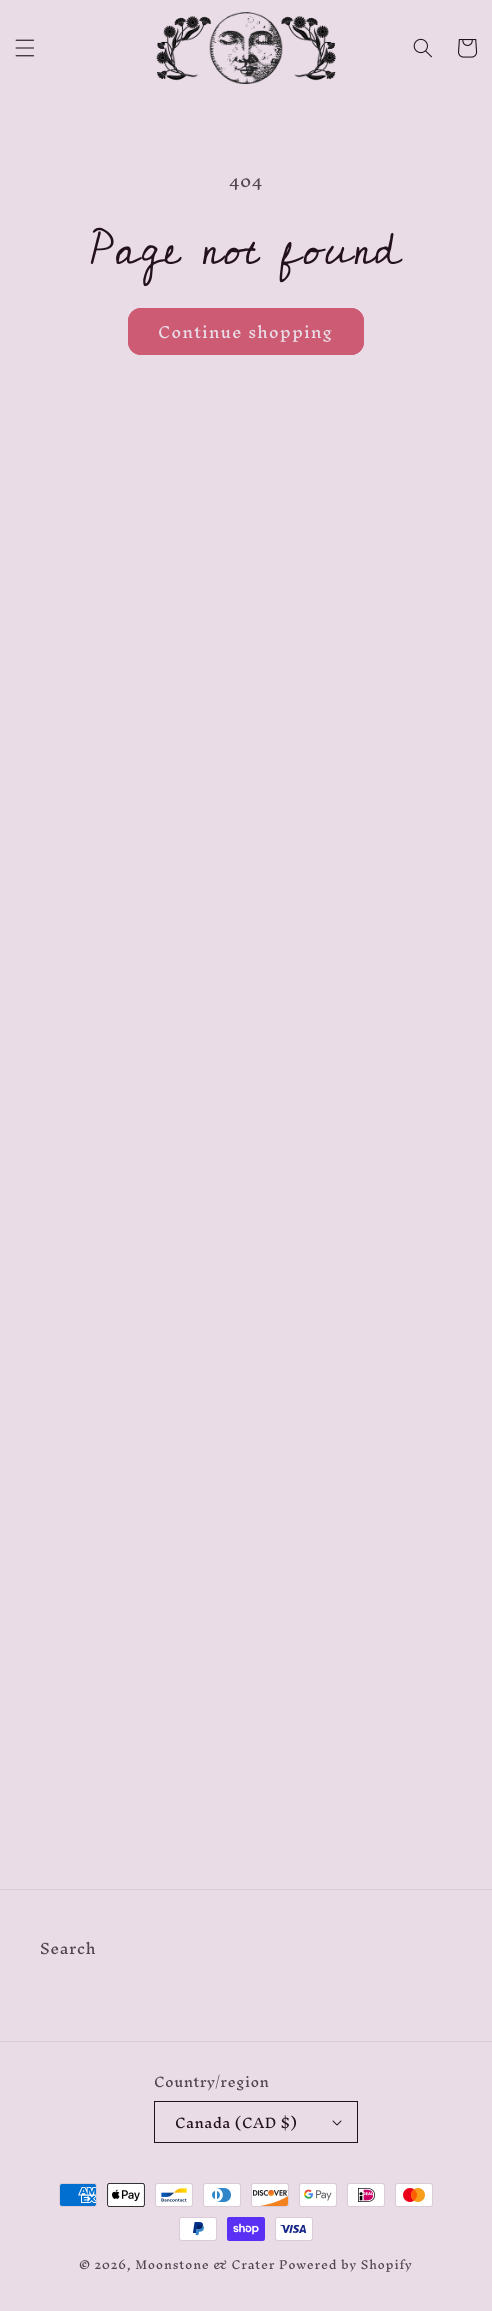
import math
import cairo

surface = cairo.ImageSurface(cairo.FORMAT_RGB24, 492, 2311)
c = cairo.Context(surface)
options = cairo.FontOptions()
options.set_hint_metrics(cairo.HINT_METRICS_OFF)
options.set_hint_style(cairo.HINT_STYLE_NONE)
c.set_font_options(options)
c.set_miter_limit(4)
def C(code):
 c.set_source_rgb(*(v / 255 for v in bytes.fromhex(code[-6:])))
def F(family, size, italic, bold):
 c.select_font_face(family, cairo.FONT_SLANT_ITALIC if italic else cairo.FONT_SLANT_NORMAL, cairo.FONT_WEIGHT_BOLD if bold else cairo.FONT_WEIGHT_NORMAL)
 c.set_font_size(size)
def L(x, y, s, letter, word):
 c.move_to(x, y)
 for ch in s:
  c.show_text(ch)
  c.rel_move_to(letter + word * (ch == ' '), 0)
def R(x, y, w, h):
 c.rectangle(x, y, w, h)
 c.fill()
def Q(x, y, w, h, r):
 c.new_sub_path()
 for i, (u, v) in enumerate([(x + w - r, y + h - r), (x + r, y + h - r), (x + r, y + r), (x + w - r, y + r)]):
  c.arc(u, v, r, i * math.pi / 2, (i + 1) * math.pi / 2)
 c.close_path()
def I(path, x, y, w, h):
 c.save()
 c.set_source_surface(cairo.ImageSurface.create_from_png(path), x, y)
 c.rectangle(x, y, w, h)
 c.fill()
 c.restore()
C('e9dce7')
c.paint()
I('1.png',15,39,20,18)
I('2.png',156,12,180,72)
I('3.png',413,38,19,20)
I('4.png',458,39,20,19)
F('Inknut Antiqua',15,0,0)
C('554550')
L(229,187,'404',.5,0)
F('Cedarville Cursive',45,0,0)
C('23121d')
L(90,264,'Page not found',.9,0)
C('cc5b73')
Q(128,308,236,47,13)
c.fill()
Q(128.5,308.5,235,46,12.5)
c.set_line_width(1)
c.stroke()
F('Inknut Antiqua',15,0,0)
C('e9dce7')
L(158,338,'Continue shopping',1,0)
C('d9ccd7')
R(0,1889,492,1)
F('Inknut Antiqua',14,0,0)
C('554550')
L(40,1954,'Search',.5,0)
C('d9ccd7')
R(0,2041,492,1)
F('Inknut Antiqua',13,0,0)
C('554550')
L(154,2087,'Country/region',.4,0)
I('5.png',332,2120,10,6)
c.rectangle(154.5,2101.5,203,41)
C('23121d')
c.stroke()
L(175,2128,'Canada (CAD $)',.4,0)
I('6.png',59,2183,38,24)
I('7.png',107,2183,38,24)
I('8.png',155,2183,38,24)
I('9.png',203,2183,38,24)
I('10.png',251,2183,38,24)
I('11.png',299,2183,38,24)
I('12.png',347,2183,38,24)
I('13.png',395,2183,38,24)
I('14.png',179,2217,38,24)
I('15.png',227,2217,38,24)
I('16.png',275,2217,38,24)
F('Inknut Antiqua',11,0,0)
C('554550')
L(79,2269,'© 2026, Moonstone & Crater Powered by Shopify',.7,0)
surface.write_to_png('o.png')
